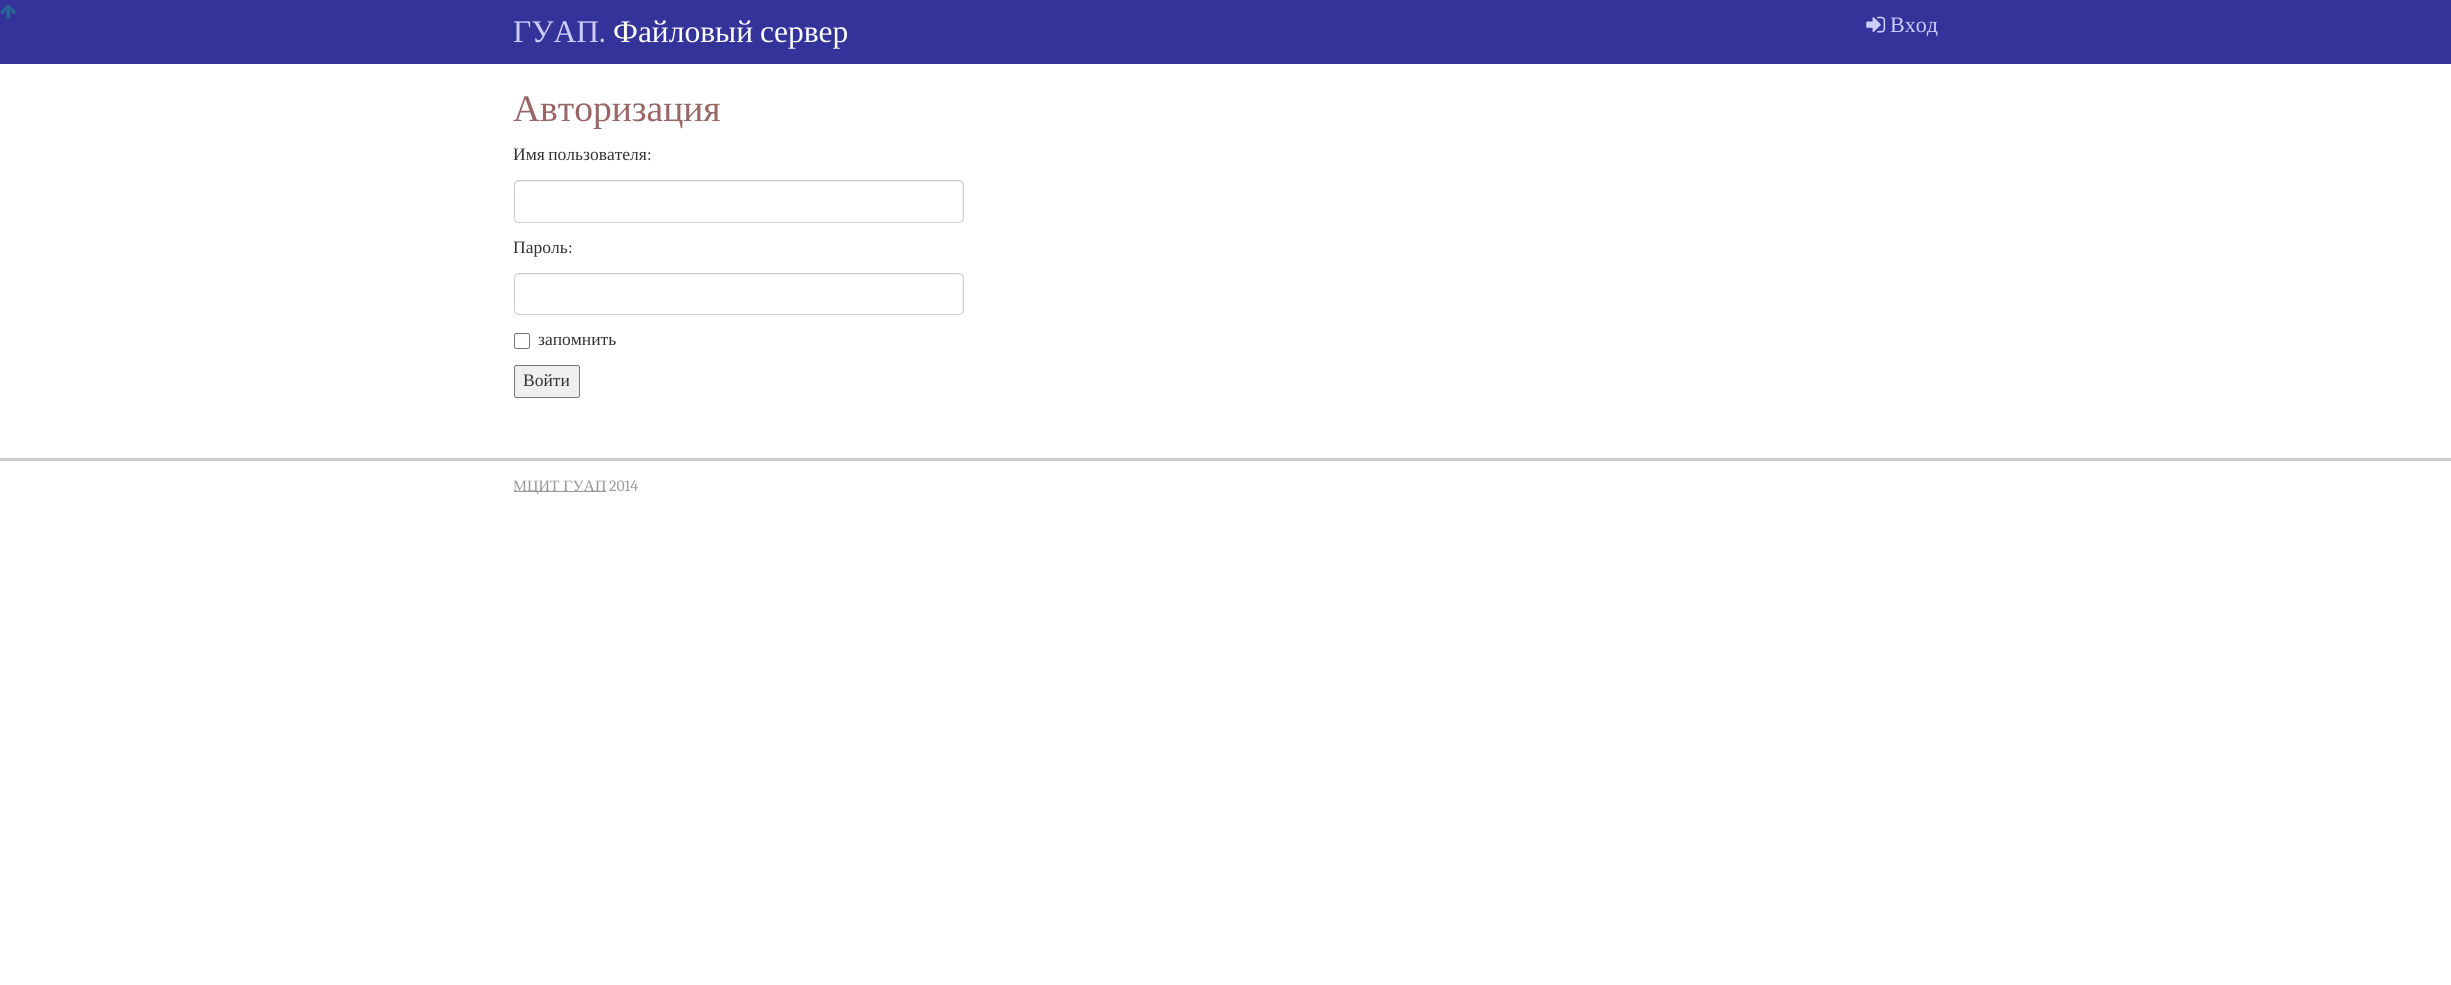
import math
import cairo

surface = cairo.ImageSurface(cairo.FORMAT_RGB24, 2451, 985)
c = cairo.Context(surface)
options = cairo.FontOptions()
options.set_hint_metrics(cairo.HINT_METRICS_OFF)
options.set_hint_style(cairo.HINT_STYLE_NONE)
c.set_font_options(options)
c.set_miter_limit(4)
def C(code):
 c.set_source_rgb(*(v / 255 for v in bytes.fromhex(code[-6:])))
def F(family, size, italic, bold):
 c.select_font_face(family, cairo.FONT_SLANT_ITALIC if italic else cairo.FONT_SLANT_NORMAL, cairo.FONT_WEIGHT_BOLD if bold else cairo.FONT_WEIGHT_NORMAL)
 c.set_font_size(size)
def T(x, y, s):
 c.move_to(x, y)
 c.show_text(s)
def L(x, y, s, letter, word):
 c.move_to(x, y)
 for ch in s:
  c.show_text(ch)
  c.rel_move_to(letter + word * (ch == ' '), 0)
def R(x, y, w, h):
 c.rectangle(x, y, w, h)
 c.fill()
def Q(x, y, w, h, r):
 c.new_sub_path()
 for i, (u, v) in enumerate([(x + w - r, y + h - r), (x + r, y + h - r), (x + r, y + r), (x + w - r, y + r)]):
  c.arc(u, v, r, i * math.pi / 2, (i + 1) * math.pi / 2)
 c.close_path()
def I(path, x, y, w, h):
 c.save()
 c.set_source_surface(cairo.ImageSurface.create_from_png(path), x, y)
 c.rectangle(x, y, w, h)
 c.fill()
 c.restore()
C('ffffff')
c.paint()
C('333399')
R(0,0,2451,64)
I('1.png',0,4,16,15)
F('Liberation Serif',31.5,0,0)
C('ccccff')
T(513,42,'ГУАП')
F('Caladea',31.5,0,0)
T(599,42,'.')
F('Liberation Serif',31.5,0,0)
C('ffffff')
L(613,42,'Файловый сервер',0,-1)
I('2.png',1866,16,20,17)
F('Liberation Serif',22,0,0)
C('ccccff')
T(1890,32,'Вход')
F('Liberation Serif',37.5,0,0)
C('996666')
T(513,121,'Авторизация')
F('Liberation Serif',17.5,0,0)
C('333333')
L(513,160,'Имя пользователя',0,-1)
F('Caladea',17.5,0,0)
T(647,160,':')
C('ececec')
c.new_path()
c.move_to(519,182)
c.line_to(959,182)
c.curve_to(961,182,962,184,962,186)
c.line_to(962,220)
c.curve_to(963,219,963,218,963,217)
c.line_to(963,185)
c.curve_to(963,183,961,181,959,181)
c.line_to(519,181)
c.curve_to(517,181,515,183,515,185)
c.line_to(515,186)
c.curve_to(515,184,517,182,519,182)
c.close_path()
c.fill()
Q(514.5,180.5,449,42,4.5)
C('cccccc')
c.set_line_width(1)
c.stroke()
F('Liberation Serif',17.5,0,0)
C('333333')
T(513,253,'Пароль')
F('Caladea',17.5,0,0)
T(568,253,':')
C('ececec')
c.new_path()
c.move_to(519,275)
c.line_to(959,275)
c.curve_to(964,275,962,288,962,290)
c.line_to(962,313)
c.curve_to(962,312,963,311,963,310)
c.line_to(963,278)
c.curve_to(963,276,961,274,959,274)
c.line_to(519,274)
c.curve_to(517,274,515,276,515,278)
c.line_to(515,279)
c.curve_to(515,277,517,275,519,275)
c.close_path()
c.fill()
Q(514.5,273.5,449,41,4.5)
C('cccccc')
c.stroke()
Q(514.5,333.5,15,15,2)
C('767676')
c.stroke()
F('Liberation Serif',17.5,0,0)
C('333333')
T(538,345,'запомнить')
C('efefef')
Q(514.5,365.5,65,32,2)
c.fill_preserve()
C('767676')
c.stroke()
C('333333')
T(523,386,'Войти')
C('cccccc')
R(0,458,2451,3)
C('999999')
R(514,491,92,1)
F('Liberation Serif',15.75,0,0)
T(513,491,'МЦИТ ГУАП')
F('Caladea',15.75,0,0)
T(609,491,'2014')
surface.write_to_png('o.png')
